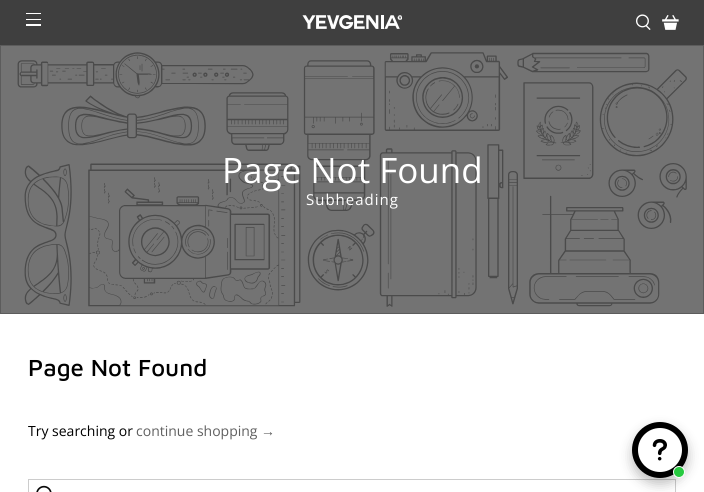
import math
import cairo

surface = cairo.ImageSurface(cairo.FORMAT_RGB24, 704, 492)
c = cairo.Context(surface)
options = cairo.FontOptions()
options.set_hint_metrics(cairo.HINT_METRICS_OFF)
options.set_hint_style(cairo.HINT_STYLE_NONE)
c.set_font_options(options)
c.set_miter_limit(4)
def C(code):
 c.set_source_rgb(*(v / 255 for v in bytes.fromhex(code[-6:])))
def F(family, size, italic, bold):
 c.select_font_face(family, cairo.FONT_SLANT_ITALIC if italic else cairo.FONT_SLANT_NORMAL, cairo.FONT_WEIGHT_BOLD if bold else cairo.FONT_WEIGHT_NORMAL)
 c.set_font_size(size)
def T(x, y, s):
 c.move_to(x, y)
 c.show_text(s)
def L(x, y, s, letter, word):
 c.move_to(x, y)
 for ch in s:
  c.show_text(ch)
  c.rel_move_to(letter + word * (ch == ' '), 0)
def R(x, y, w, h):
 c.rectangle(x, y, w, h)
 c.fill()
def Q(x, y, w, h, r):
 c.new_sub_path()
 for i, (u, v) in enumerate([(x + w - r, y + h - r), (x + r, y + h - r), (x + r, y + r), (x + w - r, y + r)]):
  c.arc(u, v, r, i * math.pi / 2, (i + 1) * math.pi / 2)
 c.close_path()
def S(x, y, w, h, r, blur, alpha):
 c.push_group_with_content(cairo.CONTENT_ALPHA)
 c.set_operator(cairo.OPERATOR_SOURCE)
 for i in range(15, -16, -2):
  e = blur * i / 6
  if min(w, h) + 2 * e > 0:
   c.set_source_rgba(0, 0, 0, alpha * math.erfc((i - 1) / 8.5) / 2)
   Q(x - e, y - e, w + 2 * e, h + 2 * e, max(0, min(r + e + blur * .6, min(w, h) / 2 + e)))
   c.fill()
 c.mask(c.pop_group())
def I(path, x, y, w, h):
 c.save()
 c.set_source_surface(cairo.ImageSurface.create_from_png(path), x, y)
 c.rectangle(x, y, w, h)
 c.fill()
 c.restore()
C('ffffff')
c.paint()
C('3f3f3f')
R(0,0,704,45)
C('ffffff')
R(26,13,15,1)
R(26,19,15,1)
R(26,24,15,2)
I('1.png',302,15,100,14)
I('2.png',636,14,15,16)
I('3.png',662,15,17,15)
C('737373')
c.rectangle(.5,45.5,703,268)
c.fill_preserve()
C('5c5c5c')
c.set_line_width(1)
c.stroke()
I('4.png',17,52,670,255)
F('Open Sans',35,0,0)
C('ffffff')
T(222,183,'Page Not Found')
F('Open Sans',15,0,0)
L(306,205,'Subheading',1,0)
F('Maven Pro Medium',24,0,0)
C('000000')
T(28,376,'Page Not Found')
F('Open Sans',14,0,0)
T(28,436,'Try searching or')
C('606060')
T(136,436,'continue shopping')
F('Liberation Sans',14,0,0)
T(261,436,'→')
c.rectangle(28.5,479.5,647,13)
C('cccccc')
c.stroke()
I('5.png',36,485,16,7)
C('000000')
S(632,428,56,56,28,6,.25)
C('000000')
c.arc(660,450,28,0,2 * math.pi)
c.fill()
C('ffffff')
c.arc(660,450,22,0,2 * math.pi)
c.fill()
I('6.png',652,439,15,22)
C('27ca40')
c.arc(679,472,5.5,0,2 * math.pi)
c.fill_preserve()
C('ffffff')
c.stroke()
surface.write_to_png('o.png')
